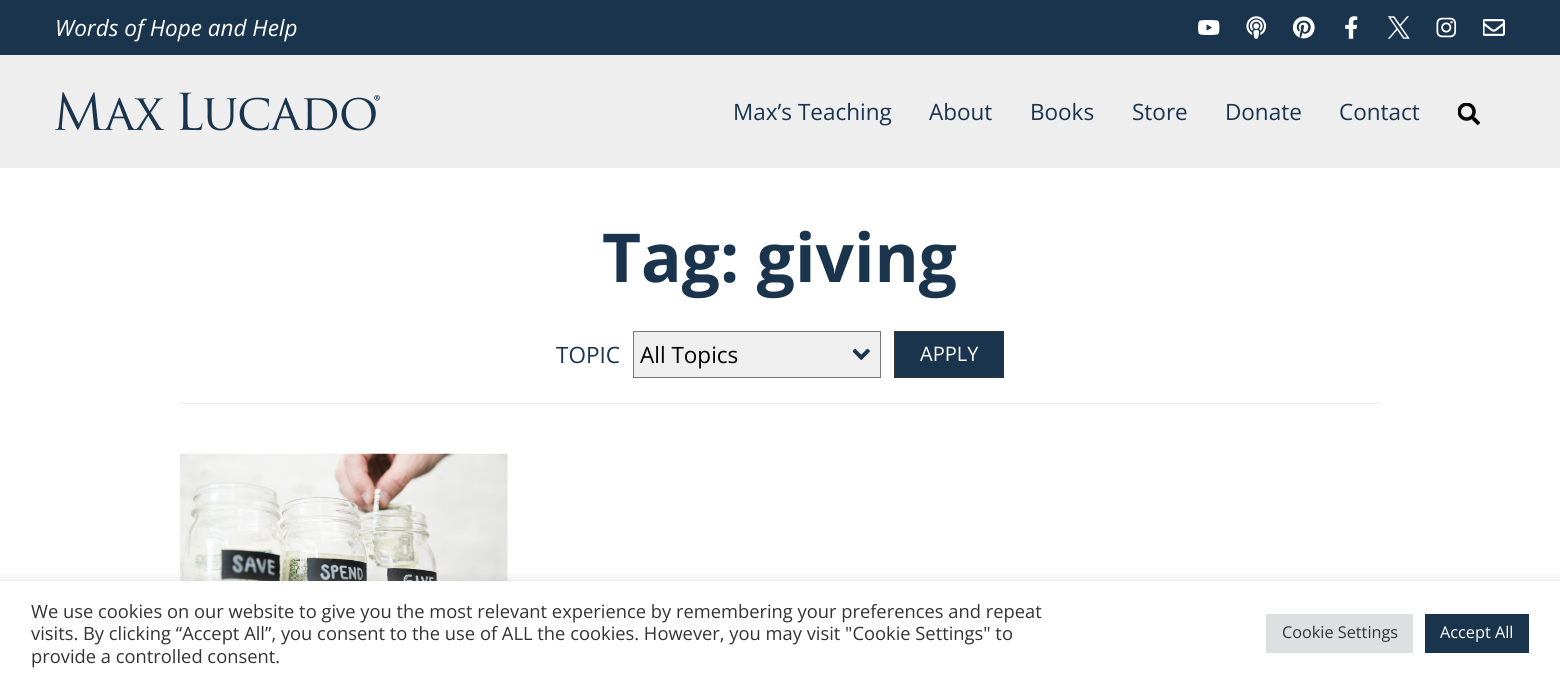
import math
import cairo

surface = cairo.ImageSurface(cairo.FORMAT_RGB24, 1560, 683)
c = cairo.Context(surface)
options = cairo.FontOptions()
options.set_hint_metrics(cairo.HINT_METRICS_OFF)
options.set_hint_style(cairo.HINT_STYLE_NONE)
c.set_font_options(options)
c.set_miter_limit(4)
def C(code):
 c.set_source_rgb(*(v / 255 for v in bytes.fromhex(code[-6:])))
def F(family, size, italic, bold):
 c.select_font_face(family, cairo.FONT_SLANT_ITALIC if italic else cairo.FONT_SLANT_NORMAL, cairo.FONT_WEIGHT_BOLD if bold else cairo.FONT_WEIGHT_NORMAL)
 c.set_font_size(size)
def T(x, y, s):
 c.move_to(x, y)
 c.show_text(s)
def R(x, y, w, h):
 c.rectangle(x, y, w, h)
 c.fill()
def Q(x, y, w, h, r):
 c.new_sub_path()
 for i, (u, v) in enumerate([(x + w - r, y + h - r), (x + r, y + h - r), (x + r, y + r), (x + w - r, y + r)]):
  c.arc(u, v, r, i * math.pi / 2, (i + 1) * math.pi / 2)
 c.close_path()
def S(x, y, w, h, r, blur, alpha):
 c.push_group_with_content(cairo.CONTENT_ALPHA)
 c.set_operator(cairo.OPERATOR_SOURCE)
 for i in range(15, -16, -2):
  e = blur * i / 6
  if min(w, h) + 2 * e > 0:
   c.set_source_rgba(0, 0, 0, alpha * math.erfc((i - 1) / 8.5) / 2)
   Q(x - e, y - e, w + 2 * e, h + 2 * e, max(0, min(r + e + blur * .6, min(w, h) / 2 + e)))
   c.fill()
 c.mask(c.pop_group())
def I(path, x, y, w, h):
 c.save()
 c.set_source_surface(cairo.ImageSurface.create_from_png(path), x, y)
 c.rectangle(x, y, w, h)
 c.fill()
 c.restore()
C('ffffff')
c.paint()
C('1a344d')
R(0,0,1560,55)
F('Open Sans',22.5,1,0)
C('ffffff')
T(55,36,'Words of Hope and Help')
I('1.png',1198,20,22,15)
I('2.png',1246,16,21,23)
I('3.png',1293,16,22,23)
I('4.png',1345,16,13,23)
I('5.png',1388,16,22,23)
I('6.png',1436,17,21,21)
I('7.png',1483,19,22,17)
C('eeeeee')
R(0,55,1560,113)
I('8.png',55,92,325,39)
F('Open Sans',22.5,0,0)
C('1a344d')
T(733,120,'Max’s Teaching')
T(929,120,'About')
T(1030,120,'Books')
T(1132,120,'Store')
T(1225,120,'Donate')
T(1339,120,'Contact')
I('9.png',1458,103,22,22)
C('eeeeee')
R(180,403,1200,1)
F('Open Sans',67.5,0,1)
C('1a344d')
T(602,282,'Tag: giving')
F('Open Sans',22.5,0,0)
T(556,363,'TOPIC')
C('efefef')
R(634,332,246,45)
I('10.png',853,349,17,11)
c.rectangle(633.5,331.5,247,46)
C('767676')
c.set_line_width(1)
c.stroke()
C('000000')
T(640,363,'All Topics')
C('1a344d')
c.rectangle(894.5,331.5,109,46)
c.fill_preserve()
C('343434')
c.stroke()
F('Open Sans',20,0,0)
C('ffffff')
T(920,361,'APPLY')
I('11.png',180,453,328,128)
C('acabab')
S(0,580,1560,103,0,6,.3)
C('ffffff')
R(0,581,1560,102)
F('Open Sans',18.33,0,0)
C('333333')
T(31,618,'We use cookies on our website to give you the most relevant experience by remembering your preferences and repeat')
T(31,640,'visits. By clicking “Accept All”, you consent to the use of ALL the cookies. However, you may visit "Cookie Settings" to')
T(31,663,'provide a controlled consent.')
C('dedfe0')
R(1266,614,147,39)
F('Open Sans',16.25,0,0)
C('333333')
T(1282,638,'Cookie Settings')
C('1a344d')
R(1425,614,104,39)
C('ffffff')
T(1440,638,'Accept All')
surface.write_to_png('o.png')
